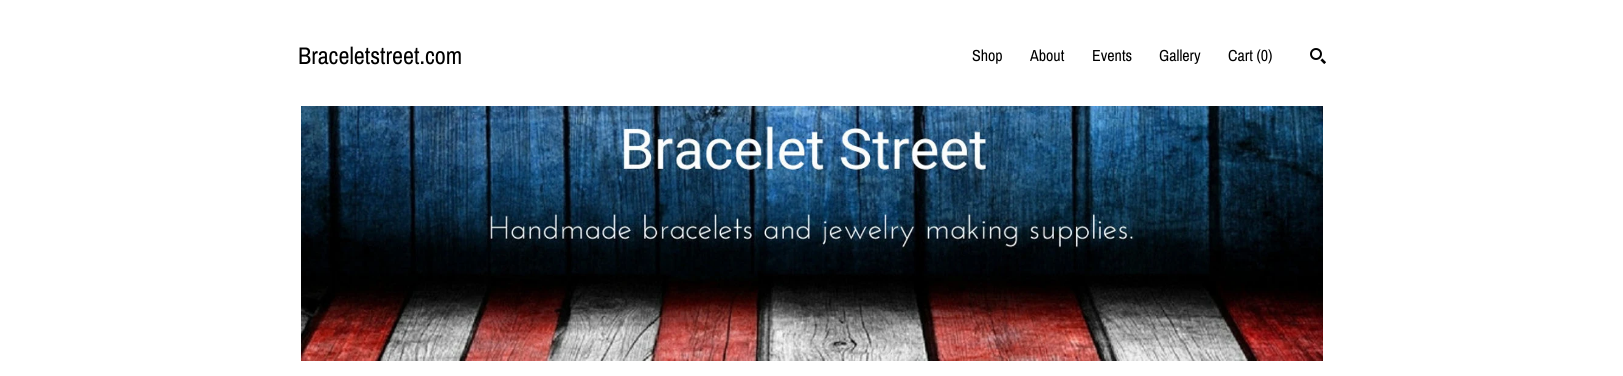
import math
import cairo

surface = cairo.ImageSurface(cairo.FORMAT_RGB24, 1623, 376)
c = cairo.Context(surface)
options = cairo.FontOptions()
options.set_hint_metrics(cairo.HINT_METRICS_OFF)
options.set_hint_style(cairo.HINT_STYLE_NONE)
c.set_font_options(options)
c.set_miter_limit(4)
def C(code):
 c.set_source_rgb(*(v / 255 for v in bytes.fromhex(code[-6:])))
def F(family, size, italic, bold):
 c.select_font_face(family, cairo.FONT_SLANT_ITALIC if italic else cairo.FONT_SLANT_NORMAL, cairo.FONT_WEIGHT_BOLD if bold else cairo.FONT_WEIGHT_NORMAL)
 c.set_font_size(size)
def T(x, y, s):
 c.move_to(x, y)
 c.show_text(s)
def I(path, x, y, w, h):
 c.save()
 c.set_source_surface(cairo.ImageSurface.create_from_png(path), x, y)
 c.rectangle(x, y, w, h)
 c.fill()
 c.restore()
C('ffffff')
c.paint()
F('Archivo Narrow',24,0,0)
C('000000')
T(298,64,'Braceletstreet.com')
F('Archivo Narrow',16,0,0)
T(972,61,'Shop')
T(1030,61,'About')
T(1092,61,'Events')
T(1159,61,'Gallery')
T(1228,61,'Cart (0)')
I('1.png',1310,48,16,16)
I('2.png',301,106,1022,255)
surface.write_to_png('o.png')
